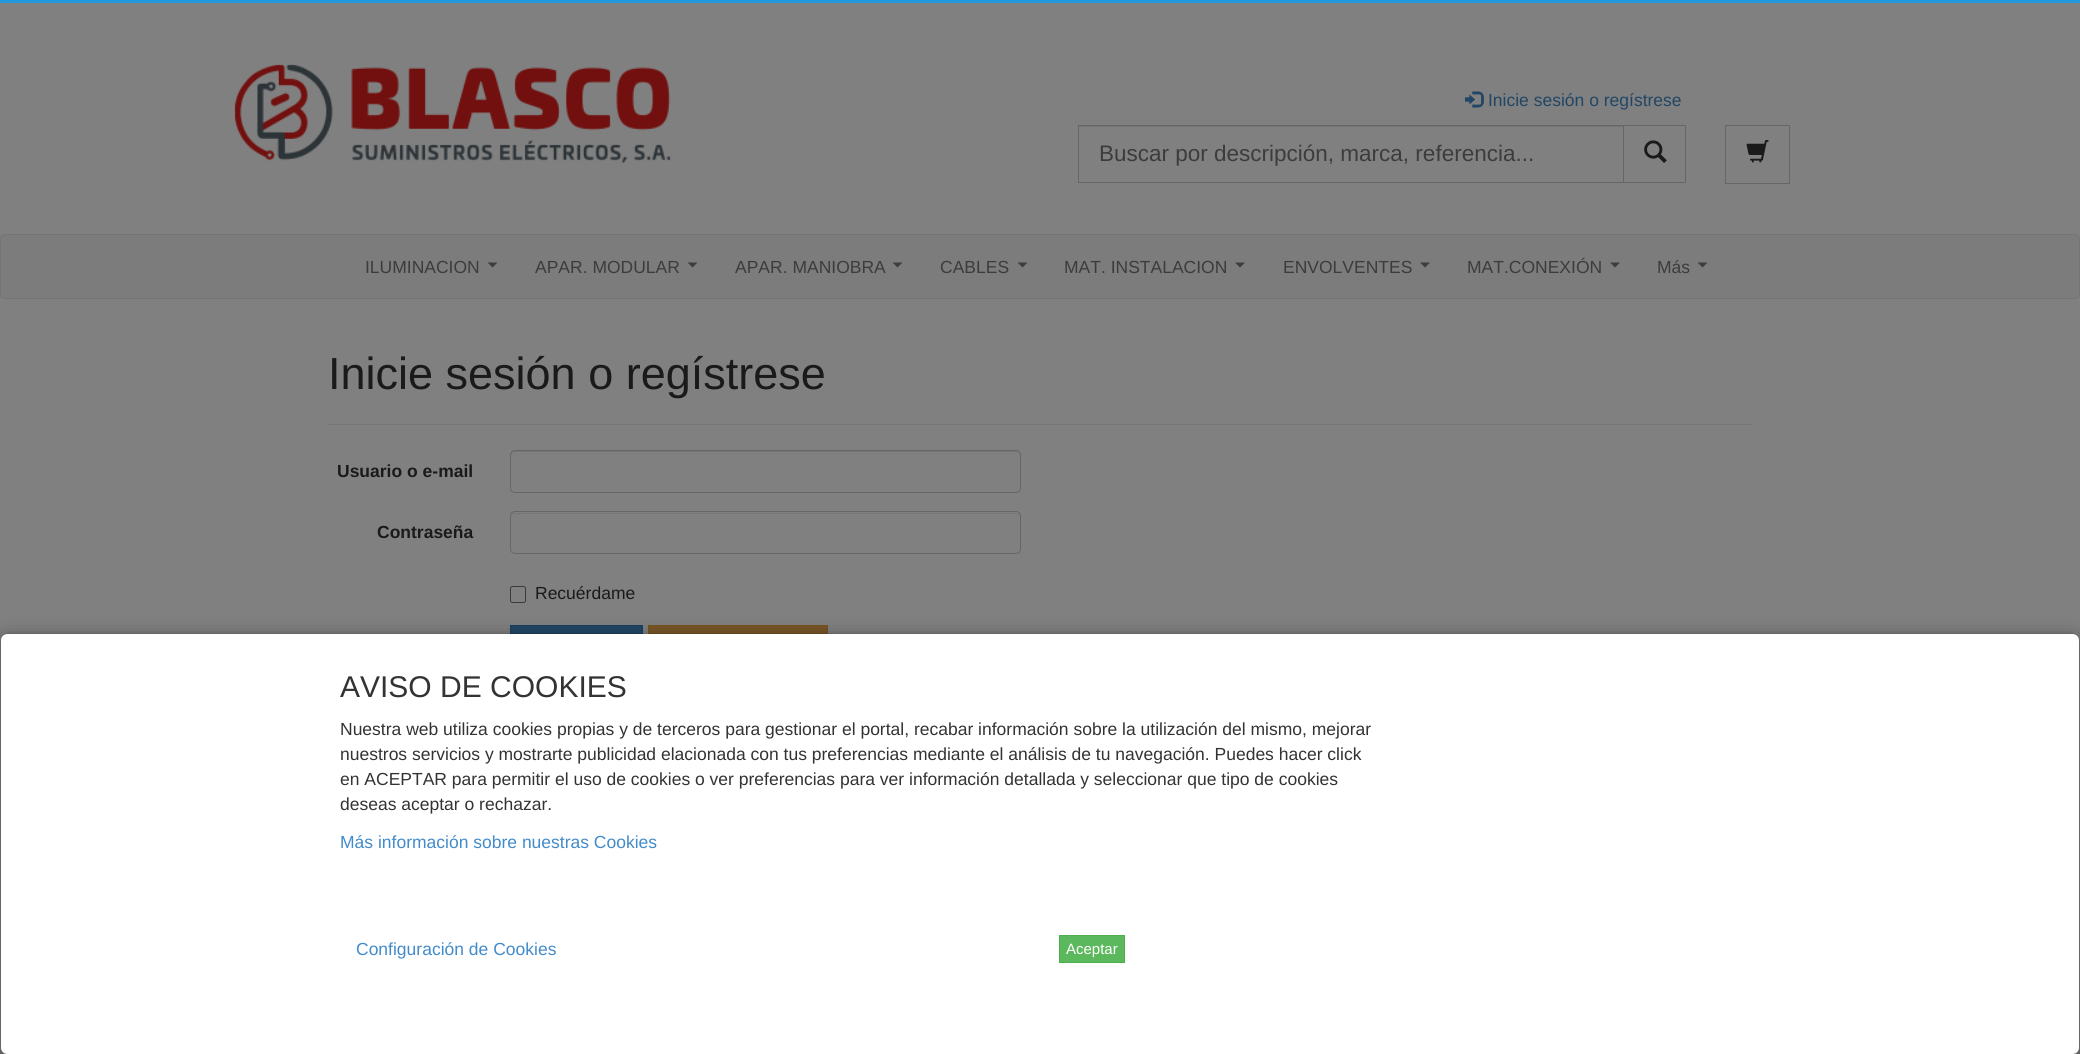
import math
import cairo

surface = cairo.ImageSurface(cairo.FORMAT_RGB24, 2080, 1054)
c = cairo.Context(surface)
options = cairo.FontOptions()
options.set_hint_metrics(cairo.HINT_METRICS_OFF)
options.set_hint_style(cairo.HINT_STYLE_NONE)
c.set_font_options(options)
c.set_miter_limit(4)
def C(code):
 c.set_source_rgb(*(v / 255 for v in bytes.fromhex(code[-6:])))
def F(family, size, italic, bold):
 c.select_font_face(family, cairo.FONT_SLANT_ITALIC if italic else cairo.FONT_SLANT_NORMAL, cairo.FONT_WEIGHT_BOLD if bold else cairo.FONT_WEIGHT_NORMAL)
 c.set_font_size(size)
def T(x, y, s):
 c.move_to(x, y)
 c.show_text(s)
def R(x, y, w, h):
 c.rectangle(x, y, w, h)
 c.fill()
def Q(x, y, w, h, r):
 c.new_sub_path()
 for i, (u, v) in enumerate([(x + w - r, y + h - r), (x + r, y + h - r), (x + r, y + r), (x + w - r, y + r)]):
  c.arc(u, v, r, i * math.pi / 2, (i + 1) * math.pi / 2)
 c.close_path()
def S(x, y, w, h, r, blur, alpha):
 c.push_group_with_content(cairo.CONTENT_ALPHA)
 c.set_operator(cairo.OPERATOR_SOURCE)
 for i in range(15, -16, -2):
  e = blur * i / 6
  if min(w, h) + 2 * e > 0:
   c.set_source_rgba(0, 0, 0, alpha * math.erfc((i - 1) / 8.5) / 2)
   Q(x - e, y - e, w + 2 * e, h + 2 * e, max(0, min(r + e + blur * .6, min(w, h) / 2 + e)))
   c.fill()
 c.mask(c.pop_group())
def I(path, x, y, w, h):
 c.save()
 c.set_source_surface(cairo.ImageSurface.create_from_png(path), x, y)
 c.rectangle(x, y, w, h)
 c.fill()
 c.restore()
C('808080')
c.paint()
C('2299dd')
R(0,0,2080,3)
I('1.png',234,64,437,100)
I('2.png',1465,91,19,17)
F('Liberation Sans',17.5,0,0)
C('214665')
T(1488,106,'Inicie sesión o regístrese')
C('767676')
R(1079,126,544,1)
c.rectangle(1623.5,125.5,62,57)
C('666666')
c.set_line_width(1)
c.stroke()
c.rectangle(1078.5,125.5,545,57)
c.stroke()
F('Liberation Sans',22.5,0,0)
C('3c3c3c')
T(1099,161,'Buscar por descripción, marca, referencia...')
I('3.png',1644,140,23,23)
c.rectangle(1725.5,125.5,64,58)
C('666666')
c.stroke()
I('4.png',1746,140,23,23)
C('7c7c7c')
Q(.5,234.5,2079,64,4.5)
c.fill_preserve()
C('747474')
c.stroke()
F('Liberation Sans',17.5,0,0)
C('3c3c3c')
T(365,273,'ILUMINACION')
c.new_path()
c.move_to(487.5,262.5)
c.line_to(497.5,262.5)
c.line_to(492.5,267.5)
c.close_path()
c.fill()
T(535,273,'APAR. MODULAR')
c.new_path()
c.move_to(687.5,262.5)
c.line_to(697.5,262.5)
c.line_to(692.5,267.5)
c.close_path()
c.fill()
T(735,273,'APAR. MANIOBRA')
c.new_path()
c.move_to(892.5,262.5)
c.line_to(902.5,262.5)
c.line_to(897.5,267.5)
c.close_path()
c.fill()
T(940,273,'CABLES')
c.new_path()
c.move_to(1017.5,262.5)
c.line_to(1027.5,262.5)
c.line_to(1022.5,267.5)
c.close_path()
c.fill()
T(1064,273,'MAT. INSTALACION')
c.new_path()
c.move_to(1235,262.5)
c.line_to(1245,262.5)
c.line_to(1240,267.5)
c.close_path()
c.fill()
T(1283,273,'ENVOLVENTES')
c.new_path()
c.move_to(1420,262.5)
c.line_to(1430,262.5)
c.line_to(1425,267.5)
c.close_path()
c.fill()
T(1467,273,'MAT.CONEXIÓN')
c.new_path()
c.move_to(1610,262.5)
c.line_to(1620,262.5)
c.line_to(1615,267.5)
c.close_path()
c.fill()
T(1657,273,'Más')
c.new_path()
c.move_to(1697.5,262.5)
c.line_to(1707.5,262.5)
c.line_to(1702.5,267.5)
c.close_path()
c.fill()
F('Liberation Sans',45,0,0)
C('1a1a1a')
T(328,389,'Inicie sesión o regístrese')
C('777777')
R(328,424,1425,1)
F('Liberation Sans',17.5,0,1)
C('1a1a1a')
T(337,477,'Usuario o e-mail')
C('767676')
c.new_path()
c.move_to(515,452)
c.line_to(1016,452)
c.curve_to(1018,452,1020,454,1020,456)
c.line_to(1020,455)
c.curve_to(1020,453,1018,451,1016,451)
c.line_to(515,451)
c.curve_to(513,451,511,453,511,455)
c.line_to(511,456)
c.curve_to(511,454,513,452,515,452)
c.close_path()
c.fill()
Q(510.5,450.5,510,42,4.5)
C('666666')
c.stroke()
C('1a1a1a')
T(377,538,'Contraseña')
C('767676')
c.new_path()
c.move_to(515,514)
c.line_to(1016,514)
c.curve_to(1018,514,1020,515,1020,518)
c.line_to(1020,517)
c.curve_to(1020,515,1018,513,1016,513)
c.line_to(515,513)
c.curve_to(513,513,511,515,511,517)
c.line_to(511,518)
c.curve_to(511,515,513,514,515,514)
c.close_path()
c.fill()
Q(510.5,511.5,510,42,4.5)
C('666666')
c.stroke()
Q(510.5,586.5,15,16,2)
C('3b3b3b')
c.stroke()
F('Liberation Sans',17.5,0,0)
C('1a1a1a')
T(535,599,'Recuérdame')
C('214665')
R(511,626,131,8)
c.rectangle(510.5,625.5,132,58)
C('1b3f5f')
c.stroke()
C('785727')
R(649,626,178,8)
c.rectangle(648.5,625.5,179,58)
C('77511b')
c.stroke()
c.save()
c.set_fill_rule(cairo.FILL_RULE_EVEN_ODD)
c.new_path()
c.move_to(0,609)
c.line_to(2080,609)
c.line_to(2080,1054)
c.line_to(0,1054)
c.close_path()
c.move_to(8,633)
c.line_to(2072,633)
c.curve_to(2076.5,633,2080,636.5,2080,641)
c.line_to(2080,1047)
c.curve_to(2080,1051.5,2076.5,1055,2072,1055)
c.line_to(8,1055)
c.curve_to(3.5,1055,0,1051.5,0,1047)
c.line_to(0,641)
c.curve_to(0,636.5,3.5,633,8,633)
c.close_path()
c.clip()
C('000000')
S(0,639,2080,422,8,9.5,.5)
c.restore()
C('ffffff')
Q(1,634,2078,420,6)
c.fill()
Q(.5,633.5,2079,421,7.5)
c.set_source_rgba(0,0,0,0.2)
c.stroke()
F('Liberation Sans',30,0,0)
C('333333')
T(340,697,'AVISO DE COOKIES')
F('Liberation Sans',17.5,0,0)
T(340,735,'Nuestra web utiliza cookies propias y de terceros para gestionar el portal, recabar información sobre la utilización del mismo, mejorar')
T(340,760,'nuestros servicios y mostrarte publicidad elacionada con tus preferencias mediante el análisis de tu navegación. Puedes hacer click')
T(340,785,'en ACEPTAR para permitir el uso de cookies o ver preferencias para ver información detallada y seleccionar que tipo de cookies')
T(340,810,'deseas aceptar o rechazar.')
C('428bca')
T(340,848,'Más información sobre nuestras Cookies')
T(356,955,'Configuración de Cookies')
C('5cb85c')
c.rectangle(1059.5,935.5,65,27)
c.fill_preserve()
C('4cae4c')
c.stroke()
F('Liberation Sans',15,0,0)
C('ffffff')
T(1066,954,'Aceptar')
surface.write_to_png('o.png')
